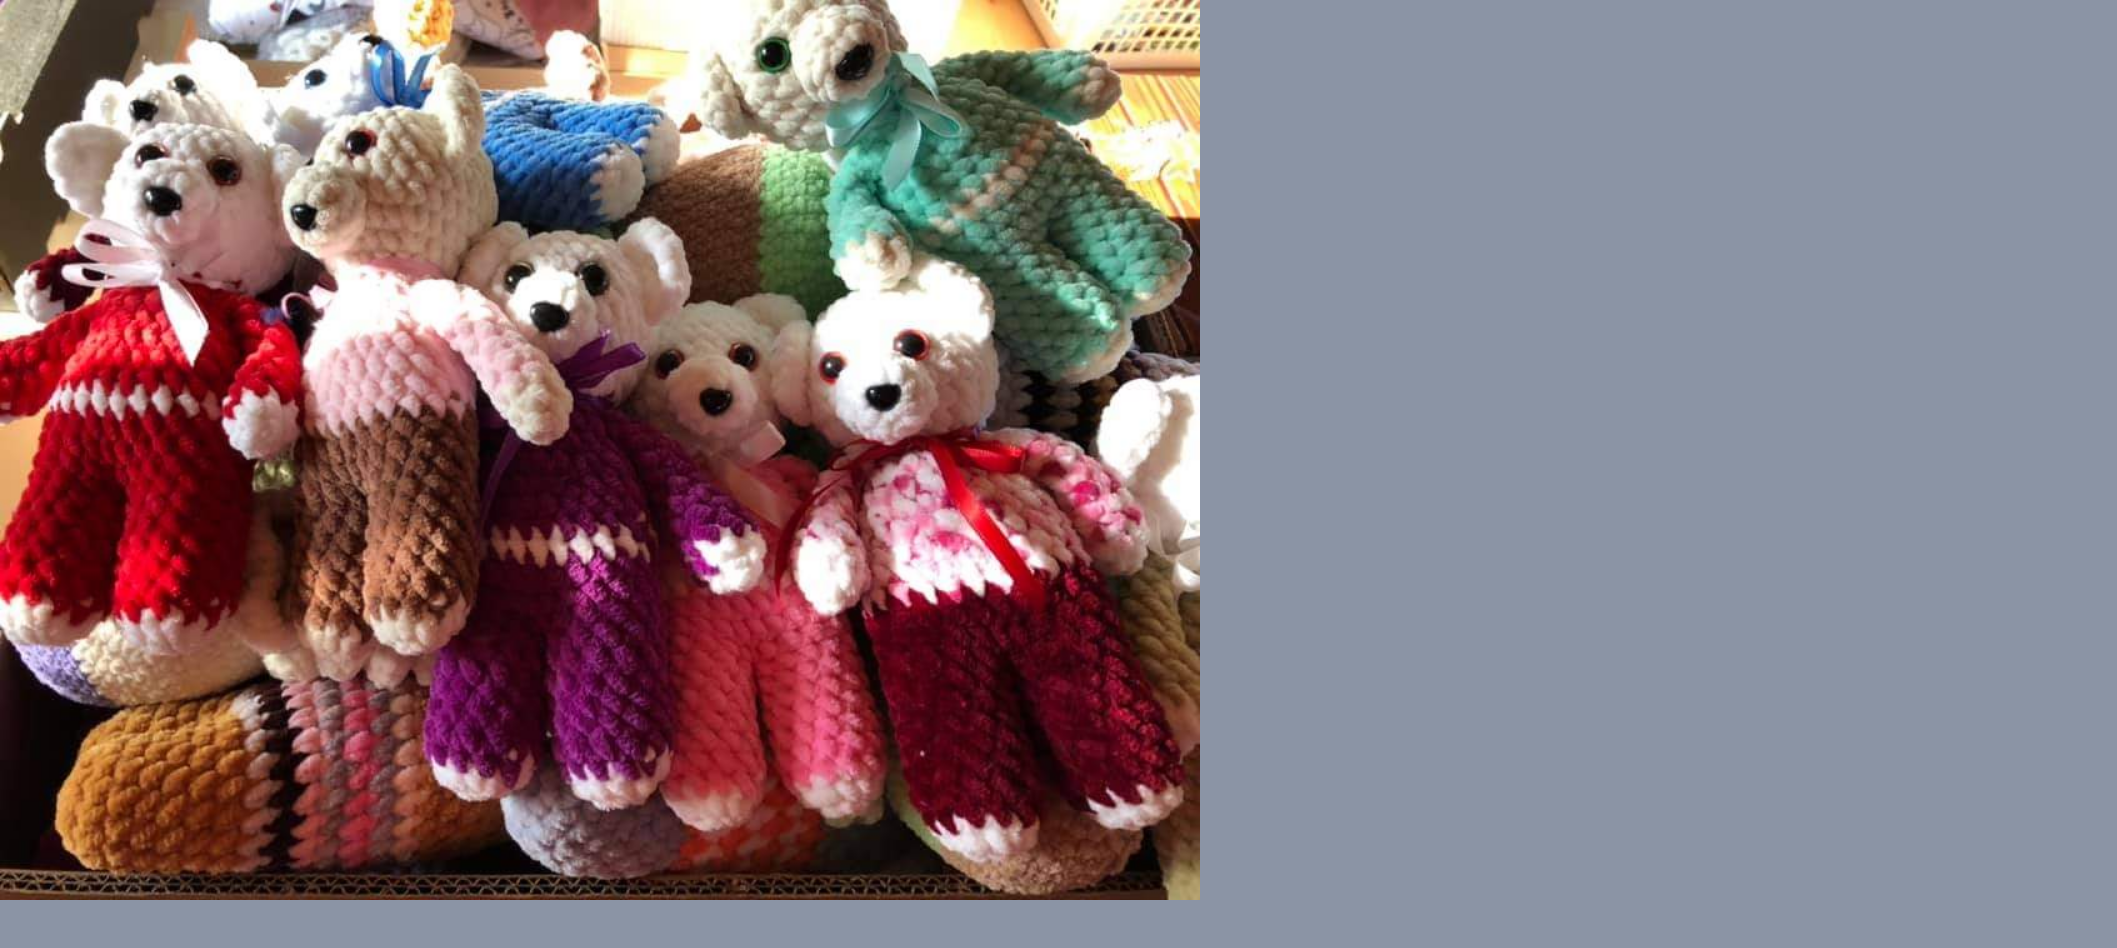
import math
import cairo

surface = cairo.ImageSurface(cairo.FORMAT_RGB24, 2117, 948)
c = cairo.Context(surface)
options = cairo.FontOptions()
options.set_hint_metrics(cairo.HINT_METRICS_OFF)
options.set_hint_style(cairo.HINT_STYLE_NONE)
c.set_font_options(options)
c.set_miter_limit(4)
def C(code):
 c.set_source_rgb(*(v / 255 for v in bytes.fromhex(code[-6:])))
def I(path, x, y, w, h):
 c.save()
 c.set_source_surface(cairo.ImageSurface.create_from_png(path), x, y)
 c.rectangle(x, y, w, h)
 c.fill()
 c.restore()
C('8b94a5')
c.paint()
I('1.png',0,0,1200,900)
surface.write_to_png('o.png')
